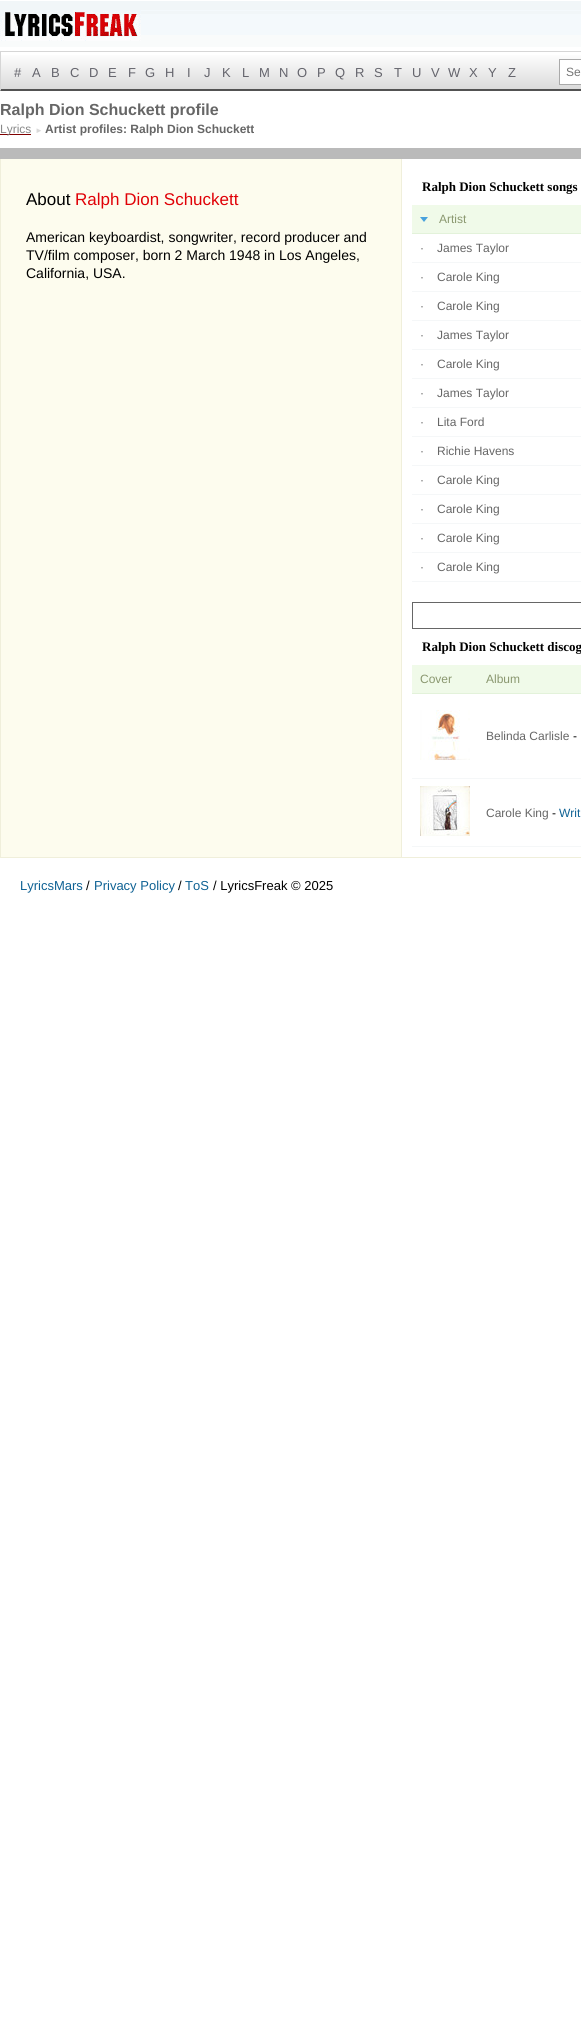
import math
import cairo

surface = cairo.ImageSurface(cairo.FORMAT_RGB24, 581, 2040)
c = cairo.Context(surface)
options = cairo.FontOptions()
options.set_hint_metrics(cairo.HINT_METRICS_OFF)
options.set_hint_style(cairo.HINT_STYLE_NONE)
c.set_font_options(options)
c.set_miter_limit(4)
def C(code):
 c.set_source_rgb(*(v / 255 for v in bytes.fromhex(code[-6:])))
def F(family, size, italic, bold):
 c.select_font_face(family, cairo.FONT_SLANT_ITALIC if italic else cairo.FONT_SLANT_NORMAL, cairo.FONT_WEIGHT_BOLD if bold else cairo.FONT_WEIGHT_NORMAL)
 c.set_font_size(size)
def T(x, y, s):
 c.move_to(x, y)
 c.show_text(s)
def R(x, y, w, h):
 c.rectangle(x, y, w, h)
 c.fill()
def I(path, x, y, w, h):
 c.save()
 c.set_source_surface(cairo.ImageSurface.create_from_png(path), x, y)
 c.rectangle(x, y, w, h)
 c.fill()
 c.restore()
C('ffffff')
c.paint()
I('1.png',0,1,581,46)
I('2.png',0,10,141,31)
gradient = cairo.LinearGradient(480,52,480,89)
gradient.add_color_stop_rgba(0,1,1,1,1)
gradient.add_color_stop_rgba(1,0.855,0.855,0.855,1)
c.set_source(gradient)
R(1,55,580,34)
C('d6d6d6')
R(0,51,581,1)
C('525252')
c.new_path()
c.move_to(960,91)
c.line_to(0,91)
c.line_to(1,89)
c.line_to(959,89)
c.close_path()
c.fill()
C('d6d6d6')
c.new_path()
c.move_to(0,91)
c.line_to(0,51)
c.line_to(1,52)
c.line_to(1,89)
c.close_path()
c.fill()
F('Liberation Sans',13,0,0)
C('64646c')
T(14,77,'#')
T(32,77,'A')
T(51,77,'B')
T(70,77,'C')
T(89,77,'D')
T(108,77,'E')
T(128,77,'F')
T(145,77,'G')
T(165,77,'H')
T(187,77,'I')
T(204,77,'J')
T(222,77,'K')
T(242,77,'L')
T(259,77,'M')
T(279,77,'N')
T(297,77,'O')
T(317,77,'P')
T(335,77,'Q')
T(355,77,'R')
T(374,77,'S')
T(394,77,'T')
T(412,77,'U')
T(431,77,'V')
T(448,77,'W')
T(469,77,'X')
T(488,77,'Y')
T(508,77,'Z')
C('ffffff')
c.rectangle(559.5,59.5,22,25)
c.fill_preserve()
C('aaaaaa')
c.set_line_width(1)
c.stroke()
F('Liberation Sans',12,0,0)
C('757575')
T(566,76,'Se')
F('Liberation Sans',16,0,1)
C('666666')
T(0,115,'Ralph Dion Schuckett profile')
C('800000')
R(0,134,31,1)
F('Liberation Sans',12,0,0)
C('888888')
T(0,133,'Lyrics')
F('Liberation Sans',8,0,0)
C('d9d9d9')
T(35,133,'►')
F('Liberation Sans',12,0,1)
C('666666')
T(45,133,'Artist profiles: Ralph Dion Schuckett')
C('bababa')
R(0,148,581,11)
C('f0efdb')
R(0,857,581,1)
R(0,159,1,699)
C('fdfcee')
R(1,159,400,698)
C('f0efdb')
R(401,159,1,698)
F('Liberation Sans',17,0,0)
C('000000')
T(26,205,'About')
C('e00107')
T(75,205,'Ralph Dion Schuckett')
F('Liberation Sans',14,0,0)
C('000000')
T(26,242,'American keyboardist, songwriter, record producer and')
T(26,260,'TV/film composer, born 2 March 1948 in Los Angeles,')
T(26,278,'California, USA.')
F('Liberation Serif',13,0,1)
T(422,191,'Ralph Dion Schuckett songs')
C('f0fae9')
R(412,205,169,28)
C('e3f2da')
R(412,233,169,1)
C('48a2dd')
c.new_path()
c.move_to(420,217)
c.line_to(428,217)
c.line_to(424,222)
c.close_path()
c.fill()
F('Liberation Sans',12,0,0)
C('8a976f')
T(439,223,'Artist')
C('f5f7f8')
R(412,262,169,1)
C('666666')
T(420,252,'·')
T(437,252,'James Taylor')
C('f5f7f8')
R(412,291,169,1)
C('666666')
T(420,281,'·')
T(437,281,'Carole King')
C('f5f7f8')
R(412,320,169,1)
C('666666')
T(420,310,'·')
T(437,310,'Carole King')
C('f5f7f8')
R(412,349,169,1)
C('666666')
T(420,339,'·')
T(437,339,'James Taylor')
C('f5f7f8')
R(412,378,169,1)
C('666666')
T(420,368,'·')
T(437,368,'Carole King')
C('f5f7f8')
R(412,407,169,1)
C('666666')
T(420,397,'·')
T(437,397,'James Taylor')
C('f5f7f8')
R(412,436,169,1)
C('666666')
T(420,426,'·')
T(437,426,'Lita Ford')
C('f5f7f8')
R(412,465,169,1)
C('666666')
T(420,455,'·')
T(437,455,'Richie Havens')
C('f5f7f8')
R(412,494,169,1)
C('666666')
T(420,484,'·')
T(437,484,'Carole King')
C('f5f7f8')
R(412,523,169,1)
C('666666')
T(420,513,'·')
T(437,513,'Carole King')
C('f5f7f8')
R(412,552,169,1)
C('666666')
T(420,542,'·')
T(437,542,'Carole King')
C('f5f7f8')
R(412,581,169,1)
C('666666')
T(420,571,'·')
T(437,571,'Carole King')
c.rectangle(412.5,602.5,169,26)
c.stroke()
F('Liberation Serif',13,0,1)
C('000000')
T(422,651,'Ralph Dion Schuckett discog')
C('f0fae9')
R(412,665,169,28)
C('e3f2da')
R(412,693,169,1)
F('Liberation Sans',12,0,0)
C('8a976f')
T(420,683,'Cover')
T(486,683,'Album')
C('f5f7f8')
R(412,778,169,1)
I('3.png',420,710,50,50)
C('666666')
T(486,740,'Belinda Carlisle')
C('000000')
T(573,740,'-')
C('f5f7f8')
R(412,846,169,1)
I('4.png',420,786,50,50)
C('666666')
T(486,817,'Carole King')
C('000000')
T(552,817,'-')
C('0f6294')
T(559,817,'Writ')
F('Liberation Sans',13,0,0)
T(20,890,'LyricsMars')
C('000000')
T(86,890,'/')
C('0f6294')
T(94,890,'Privacy Policy')
C('000000')
T(178,890,'/')
C('0f6294')
T(185,890,'ToS')
C('000000')
T(213,890,'/ LyricsFreak © 2025')
surface.write_to_png('o.png')
